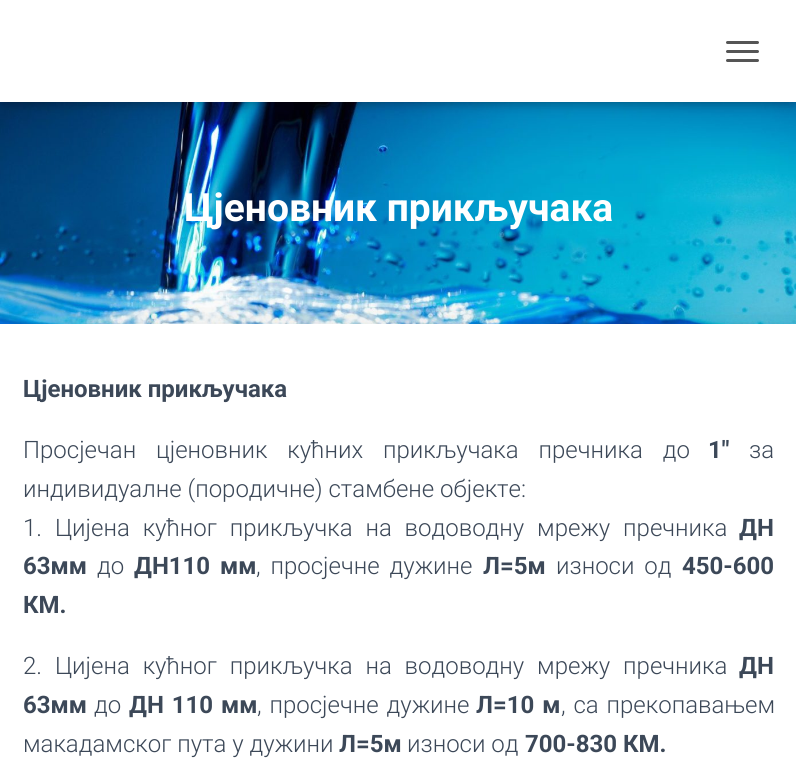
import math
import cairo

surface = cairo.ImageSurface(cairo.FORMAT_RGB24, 796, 783)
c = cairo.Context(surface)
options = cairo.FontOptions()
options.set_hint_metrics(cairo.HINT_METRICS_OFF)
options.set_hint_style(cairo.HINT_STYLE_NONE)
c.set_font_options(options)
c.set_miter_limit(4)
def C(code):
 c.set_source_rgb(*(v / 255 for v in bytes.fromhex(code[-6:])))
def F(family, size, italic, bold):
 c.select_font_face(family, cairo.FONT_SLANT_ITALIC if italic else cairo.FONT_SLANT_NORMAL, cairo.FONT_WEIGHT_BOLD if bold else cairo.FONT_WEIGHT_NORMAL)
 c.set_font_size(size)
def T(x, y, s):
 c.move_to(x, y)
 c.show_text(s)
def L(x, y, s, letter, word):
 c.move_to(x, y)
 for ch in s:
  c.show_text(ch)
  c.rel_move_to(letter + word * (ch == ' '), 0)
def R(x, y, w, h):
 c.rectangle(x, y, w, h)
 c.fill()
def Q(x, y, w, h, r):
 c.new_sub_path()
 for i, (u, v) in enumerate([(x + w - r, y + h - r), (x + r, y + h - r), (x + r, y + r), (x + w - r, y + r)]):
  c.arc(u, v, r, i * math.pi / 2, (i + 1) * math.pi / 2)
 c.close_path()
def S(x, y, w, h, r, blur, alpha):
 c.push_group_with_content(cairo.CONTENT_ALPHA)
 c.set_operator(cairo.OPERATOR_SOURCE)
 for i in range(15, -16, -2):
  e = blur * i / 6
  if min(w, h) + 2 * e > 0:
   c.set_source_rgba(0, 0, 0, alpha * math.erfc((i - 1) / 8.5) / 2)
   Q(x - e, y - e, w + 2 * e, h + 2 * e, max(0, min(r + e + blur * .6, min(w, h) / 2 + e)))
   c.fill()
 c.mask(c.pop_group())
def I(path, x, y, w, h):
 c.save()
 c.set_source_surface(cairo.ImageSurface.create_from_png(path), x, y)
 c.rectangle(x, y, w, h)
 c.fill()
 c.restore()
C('ffffff')
c.paint()
I('1.png',0,102,796,222)
C('000000')
S(3,9,791,96,0,4,.1)
S(0,2,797,102,0,7.5,.12)
S(9,11,779,84,0,7.5,.42)
C('ffffff')
R(0,0,796,102)
C('555555')
Q(726,41,33,3,1.5)
c.fill()
Q(726,50,33,3,1.5)
c.fill()
Q(726,59,33,3,1.5)
c.fill()
F('Roboto',39,0,1)
C('ffffff')
T(184,221,'Цјеновник прикључака')
C('000000')
S(-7,326,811,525,0,22.5,.12)
C('ffffff')
R(0,324,796,459)
F('Roboto',24,0,1)
C('3c4858')
T(23,397,'Цјеновник прикључака')
F('Roboto Light',24,0,0)
L(23,458,'Просјечан цјеновник кућних прикључака пречника до',0,14)
F('Roboto',24,0,1)
T(708,458,'1″')
F('Roboto Light',24,0,0)
T(749,458,'за')
T(23,497,'индивидуалне (породичне) стамбене објекте:')
L(23,536,'1. Цијена кућног прикључка на водоводну мрежу пречника',0,7)
F('Roboto',24,0,1)
T(739,536,'ДН')
T(23,574,'63мм')
F('Roboto Light',24,0,0)
T(97,574,'до')
F('Roboto',24,0,1)
L(134,574,'ДН110 мм',0,4)
F('Roboto Light',24,0,0)
L(256,574,', просјечне дужине',0,4)
F('Roboto',24,0,1)
T(483,574,'Л=5м')
F('Roboto Light',24,0,0)
L(556,574,'износи од',0,4)
F('Roboto',24,0,1)
T(682,574,'450-600')
T(23,613,'КМ.')
F('Roboto Light',24,0,0)
L(23,674,'2. Цијена кућног прикључка на водоводну мрежу пречника',0,7)
F('Roboto',24,0,1)
T(739,674,'ДН')
T(23,713,'63мм')
F('Roboto Light',24,0,0)
T(94,713,'до')
F('Roboto',24,0,1)
L(129,713,'ДН 110 мм',0,2)
F('Roboto Light',24,0,0)
L(257,713,', просјечне дужине',0,2)
F('Roboto',24,0,1)
L(476,713,'Л=10 м',0,2)
F('Roboto Light',24,0,0)
L(561,713,', са прекопавањем',0,2)
T(23,752,'макадамског пута у дужини')
F('Roboto',24,0,1)
T(339,752,'Л=5м')
F('Roboto Light',24,0,0)
T(407,752,'износи од')
F('Roboto',24,0,1)
T(525,752,'700-830 КМ.')
surface.write_to_png('o.png')
